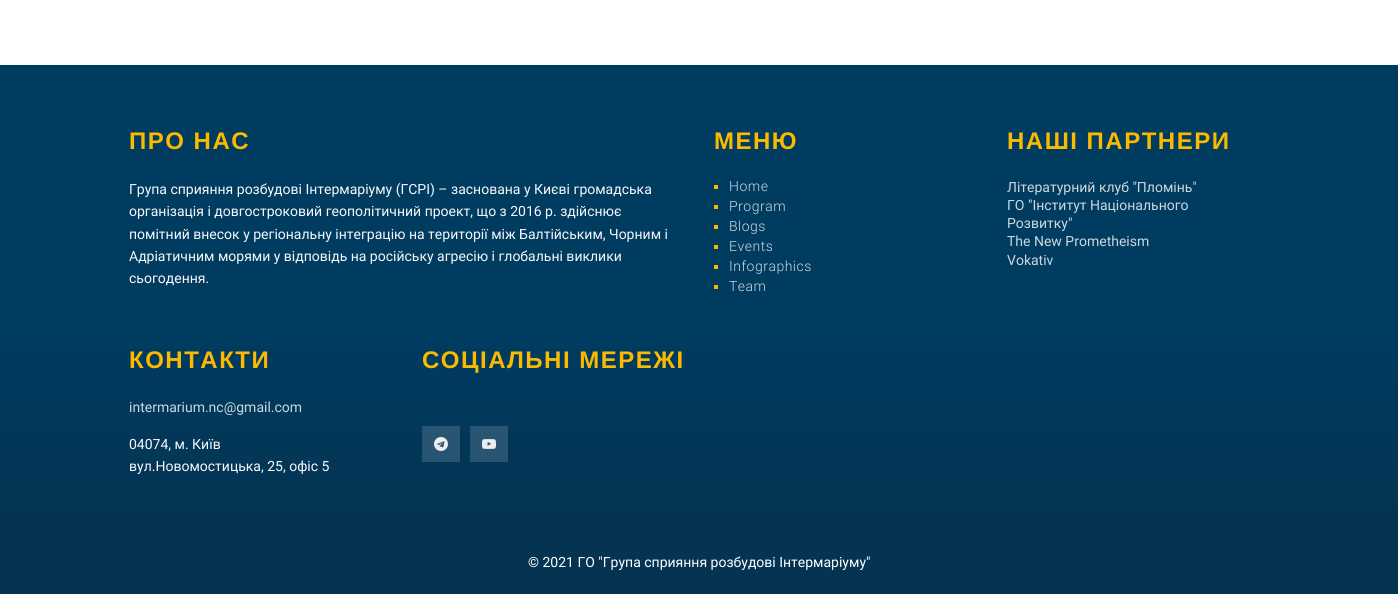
import math
import cairo

surface = cairo.ImageSurface(cairo.FORMAT_RGB24, 1398, 594)
c = cairo.Context(surface)
options = cairo.FontOptions()
options.set_hint_metrics(cairo.HINT_METRICS_OFF)
options.set_hint_style(cairo.HINT_STYLE_NONE)
c.set_font_options(options)
c.set_miter_limit(4)
def C(code):
 c.set_source_rgb(*(v / 255 for v in bytes.fromhex(code[-6:])))
def F(family, size, italic, bold):
 c.select_font_face(family, cairo.FONT_SLANT_ITALIC if italic else cairo.FONT_SLANT_NORMAL, cairo.FONT_WEIGHT_BOLD if bold else cairo.FONT_WEIGHT_NORMAL)
 c.set_font_size(size)
def T(x, y, s):
 c.move_to(x, y)
 c.show_text(s)
def L(x, y, s, letter, word):
 c.move_to(x, y)
 for ch in s:
  c.show_text(ch)
  c.rel_move_to(letter + word * (ch == ' '), 0)
def R(x, y, w, h):
 c.rectangle(x, y, w, h)
 c.fill()
def I(path, x, y, w, h):
 c.save()
 c.set_source_surface(cairo.ImageSurface.create_from_png(path), x, y)
 c.rectangle(x, y, w, h)
 c.fill()
 c.restore()
C('ffffff')
c.paint()
C('003b60')
R(0,65,1398,279)
F('Liberation Sans',24,0,1)
C('fbba00')
L(129,149,'ПРО НАС',1.5,0)
F('Roboto',14,0,0)
C('f8f8fa')
T(129,194,'Група сприяння розбудові Інтермаріуму (ГСРІ) – заснована у Києві громадська')
T(129,216,'організація і довгостроковий геополітичний проект, що з 2016 р. здійснює')
T(129,239,'помітний внесок у регіональну інтеграцію на території між Балтійським, Чорним і')
T(129,261,'Адріатичним морями у відповідь на російську агресію і глобальні виклики')
T(129,283,'сьогодення.')
F('Liberation Sans',24,0,1)
C('fbba00')
L(714,149,'МЕНЮ',1.5,0)
R(714,185,4,4)
F('Roboto Light',14,0,0)
C('ccd8df')
L(729,191,'Home',.5,0)
C('fbba00')
R(714,205,4,4)
C('ccd8df')
L(729,211,'Program',.5,0)
C('fbba00')
R(714,225,4,4)
C('ccd8df')
L(729,231,'Blogs',.5,0)
C('fbba00')
R(714,245,4,4)
C('ccd8df')
L(729,251,'Events',.5,0)
C('fbba00')
R(714,265,4,4)
C('ccd8df')
L(729,271,'Infographics',.5,0)
C('fbba00')
R(714,285,4,4)
C('ccd8df')
L(729,291,'Team',.5,0)
F('Liberation Sans',24,0,1)
C('fbba00')
L(1007,149,'НАШІ ПАРТНЕРИ',1.5,0)
F('Roboto',14,0,0)
C('ccd8df')
T(1007,192,'Літературний клуб "Пломінь"')
T(1007,210,'ГО "Інститут Національного')
T(1007,228,'Розвитку"')
T(1007,246,'The New Prometheism')
T(1007,265,'Vokativ')
gradient = cairo.LinearGradient(699,521,699,344)
gradient.add_color_stop_rgba(0,0.016,0.204,0.322,1)
gradient.add_color_stop_rgba(1,0,0.231,0.376,1)
c.set_source(gradient)
R(0,344,1398,177)
F('Liberation Sans',24,0,1)
C('fbba00')
L(129,368,'КОНТАКТИ',1.5,0)
F('Roboto',14,0,0)
C('ccd8df')
T(129,412,'intermarium.nc@gmail.com')
C('f8f8fa')
T(129,449,'04074, м. Київ')
T(129,471,'вул.Новомостицька, 25, офіс 5')
F('Liberation Sans',24,0,1)
C('fbba00')
L(422,368,'СОЦІАЛЬНІ МЕРЕЖІ',1.5,0)
C('285571')
R(422,426,38,36)
I('1.png',434,437,14,14)
R(470,426,38,36)
I('2.png',482,439,14,10)
C('043452')
R(0,521,1398,73)
F('Roboto',14,0,0)
C('ffffff')
T(528,567,'© 2021 ГО "Група сприяння розбудові Інтермаріуму"')
surface.write_to_png('o.png')
